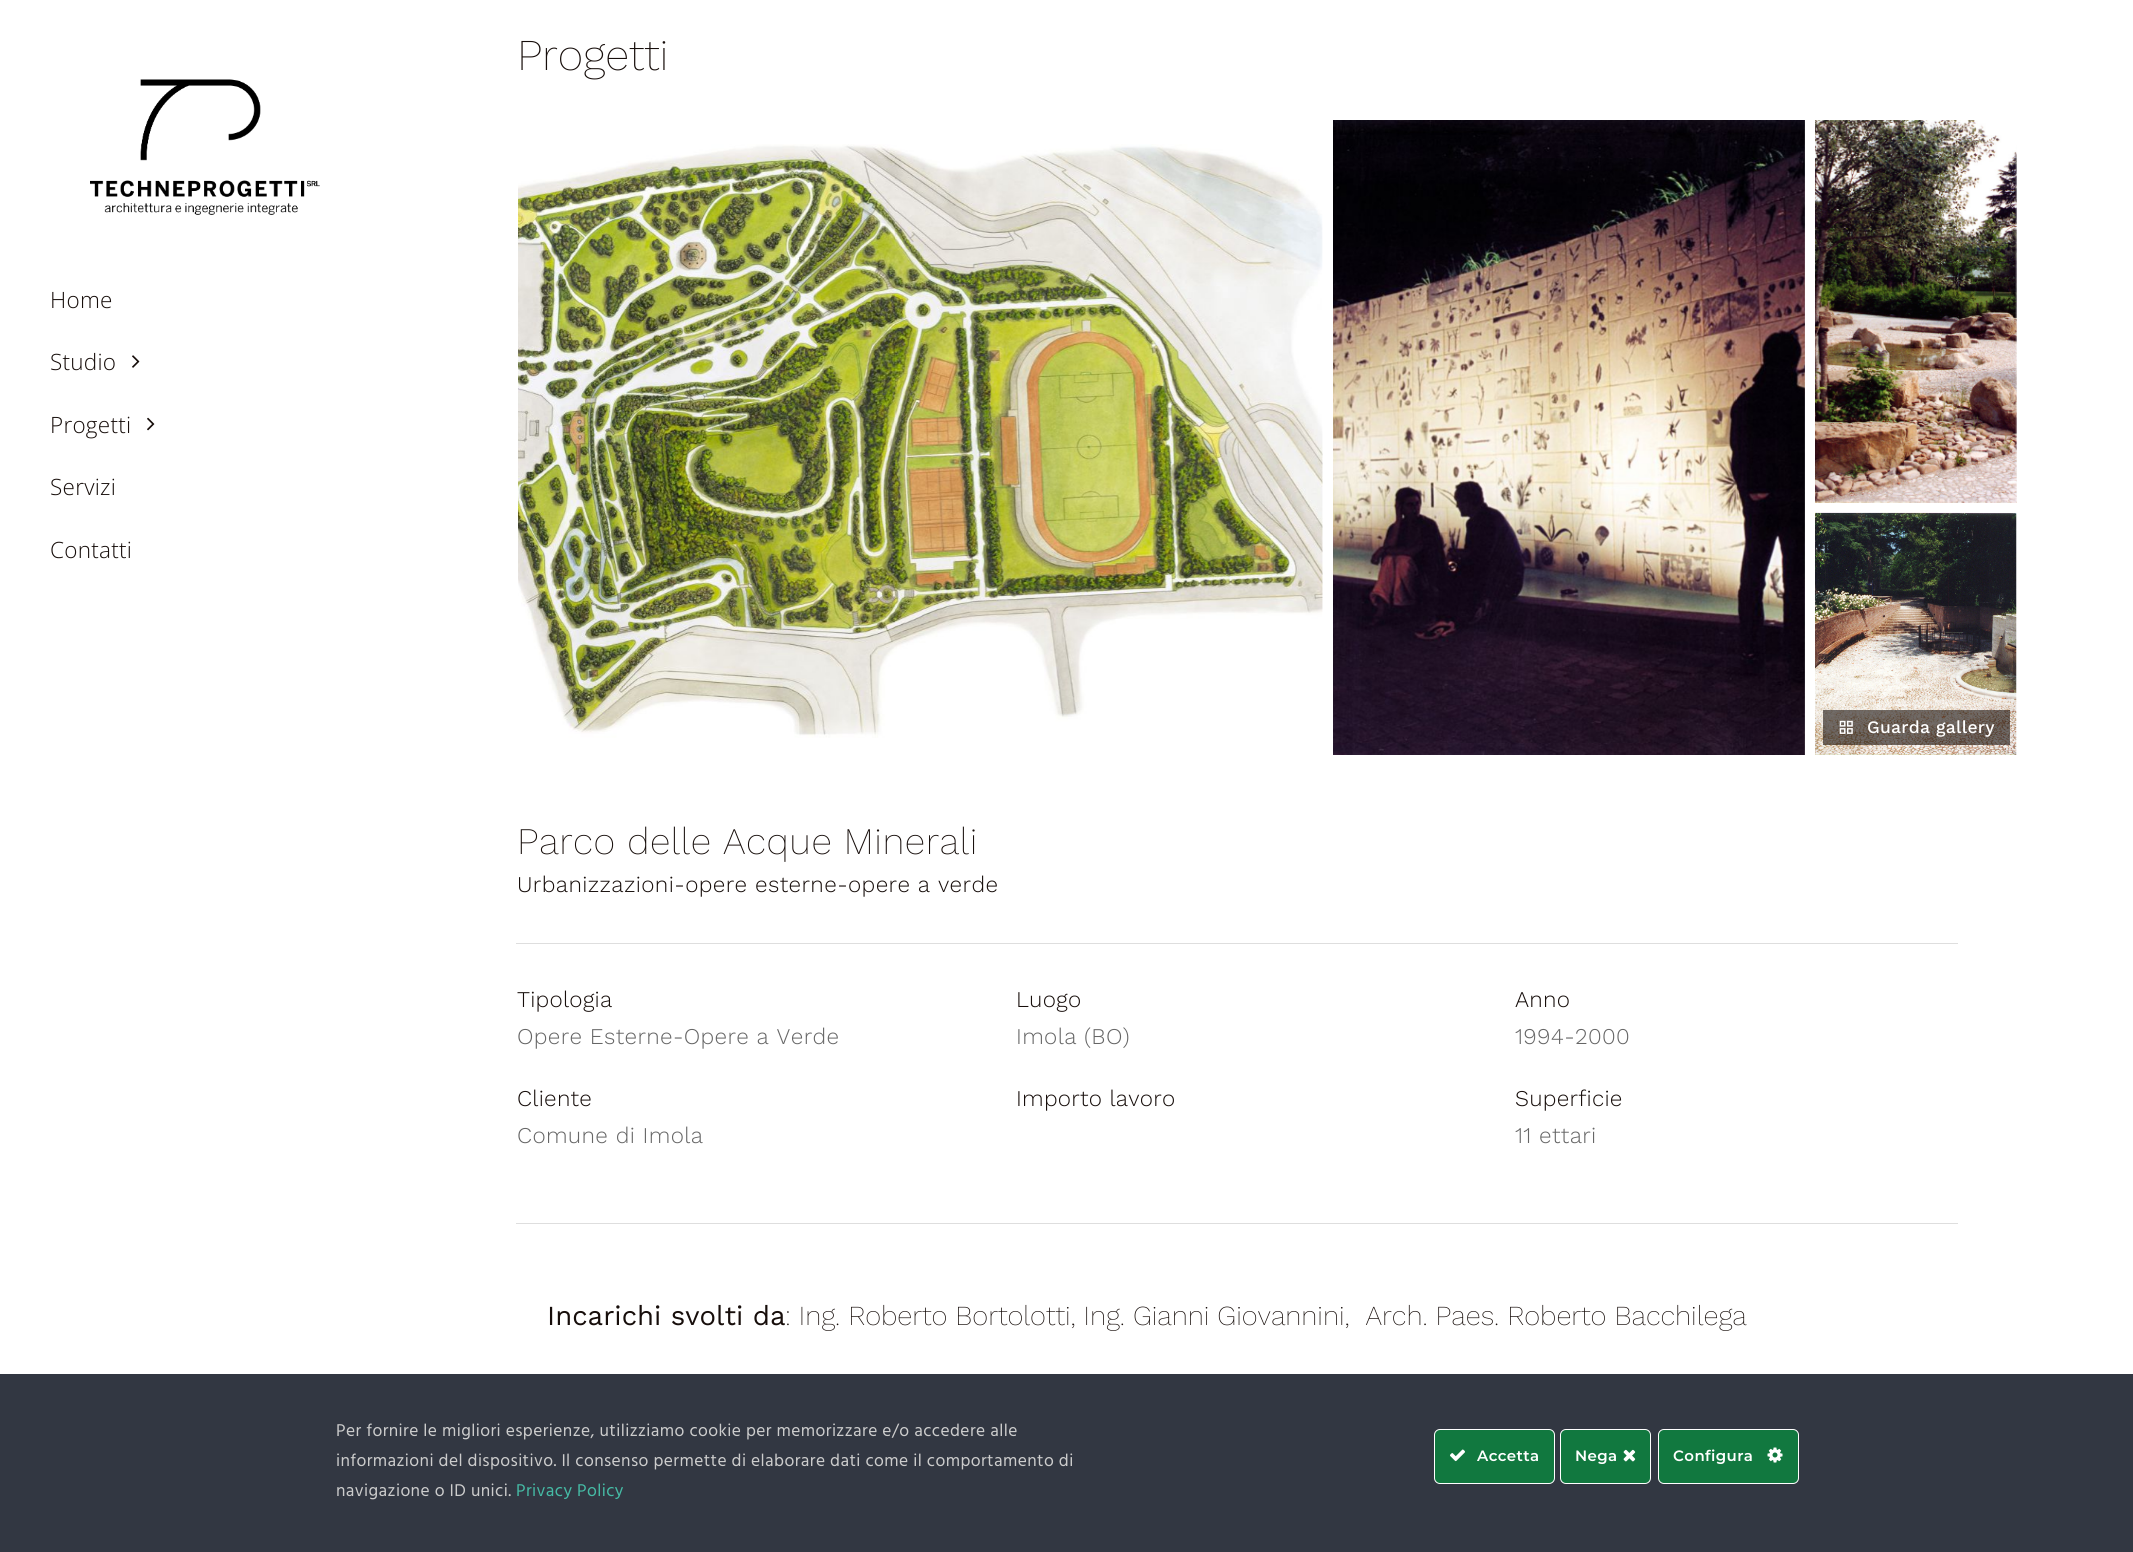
import math
import cairo

surface = cairo.ImageSurface(cairo.FORMAT_RGB24, 2133, 1552)
c = cairo.Context(surface)
options = cairo.FontOptions()
options.set_hint_metrics(cairo.HINT_METRICS_OFF)
options.set_hint_style(cairo.HINT_STYLE_NONE)
c.set_font_options(options)
c.set_miter_limit(4)
def C(code):
 c.set_source_rgb(*(v / 255 for v in bytes.fromhex(code[-6:])))
def F(family, size, italic, bold):
 c.select_font_face(family, cairo.FONT_SLANT_ITALIC if italic else cairo.FONT_SLANT_NORMAL, cairo.FONT_WEIGHT_BOLD if bold else cairo.FONT_WEIGHT_NORMAL)
 c.set_font_size(size)
def T(x, y, s):
 c.move_to(x, y)
 c.show_text(s)
def L(x, y, s, letter, word):
 c.move_to(x, y)
 for ch in s:
  c.show_text(ch)
  c.rel_move_to(letter + word * (ch == ' '), 0)
def R(x, y, w, h):
 c.rectangle(x, y, w, h)
 c.fill()
def Q(x, y, w, h, r):
 c.new_sub_path()
 for i, (u, v) in enumerate([(x + w - r, y + h - r), (x + r, y + h - r), (x + r, y + r), (x + w - r, y + r)]):
  c.arc(u, v, r, i * math.pi / 2, (i + 1) * math.pi / 2)
 c.close_path()
def I(path, x, y, w, h):
 c.save()
 c.set_source_surface(cairo.ImageSurface.create_from_png(path), x, y)
 c.rectangle(x, y, w, h)
 c.fill()
 c.restore()
C('ffffff')
c.paint()
I('1.png',90,79,230,136)
F('Open Sans Light',22.5,0,0)
C('170e0b')
L(50,308,'Home',.25,0)
L(50,370,'Studio',.25,0)
I('2.png',132,355,8,13)
L(50,433,'Progetti',.25,0)
I('3.png',147,417,8,14)
L(50,495,'Servizi',.25,0)
L(50,558,'Contatti',.25,0)
F('Work Sans ExtraLight',44,0,0)
T(517,70,'Progetti')
I('4.png',518,144,805,594)
I('5.png',1333,120,472,635)
I('6.png',1815,120,202,383)
I('7.png',1815,512,202,243)
c.set_source_rgba(0.094,0.059,0.047,0.6)
R(1823,710,187,35)
I('8.png',1839,720,14,14)
F('Work Sans Medium',17.5,0,0)
C('ffffff')
L(1867,733,'Guarda gallery',.25,0)
F('Work Sans ExtraLight',37.5,0,0)
C('170e0b')
L(517,854,'Parco delle Acque Minerali',.55,0)
F('Work Sans Light',22.5,0,0)
L(517,892,'Urbanizzazioni-opere esterne-opere a verde',.4,0)
C('dedede')
R(516,943,1442,1)
C('170e0b')
L(517,1007,'Tipologia',.25,0)
C('666666')
L(517,1044,'Opere Esterne-Opere a Verde',.35,0)
C('170e0b')
L(1016,1007,'Luogo',.25,0)
C('666666')
L(1016,1044,'Imola (BO)',.35,0)
C('170e0b')
L(1515,1007,'Anno',.25,0)
C('666666')
L(1515,1044,'1994-2000',.35,0)
C('170e0b')
L(517,1106,'Cliente',.25,0)
C('666666')
L(517,1143,'Comune di Imola',.35,0)
C('170e0b')
L(1016,1106,'Importo lavoro',.25,0)
L(1515,1106,'Superficie',.25,0)
C('666666')
L(1515,1143,'11 ettari',.35,0)
C('dedede')
R(516,1223,1442,1)
F('Work Sans',27.5,0,0)
C('170e0b')
T(547,1325,'Incarichi svolti da')
F('Work Sans ExtraLight',27.5,0,0)
T(785,1325,': Ing. Roberto Bortolotti, Ing. Gianni Giovannini,  Arch. Paes. Roberto Bacchilega')
C('323742')
R(0,1374,2133,178)
F('Hind',17.5,0,0)
C('cccccc')
L(336,1436,'Per fornire le migliori esperienze, utilizziamo cookie per memorizzare e/o accedere alle',.4,0)
L(336,1466,'informazioni del dispositivo. Il consenso permette di elaborare dati come il comportamento di',.4,0)
L(336,1496,'navigazione o ID unici.',.4,0)
C('45bba5')
L(516,1496,'Privacy Policy',.4,0)
C('11783f')
Q(1434.5,1429.5,120,54,5.5)
c.fill_preserve()
C('ffffff')
c.set_line_width(1)
c.stroke()
I('9.png',1450,1449,15,13)
F('Montserrat SemiBold',15,0,0)
L(1477,1461,'Accetta',.4,0)
C('11783f')
Q(1560.5,1429.5,90,54,5.5)
c.fill_preserve()
C('ffffff')
c.stroke()
L(1575,1461,'Nega',.4,0)
I('10.png',1623,1449,13,13)
C('11783f')
Q(1658.5,1429.5,140,54,5.5)
c.fill_preserve()
C('ffffff')
c.stroke()
L(1673,1461,'Configura',.4,0)
I('11.png',1767,1447,16,16)
surface.write_to_png('o.png')
